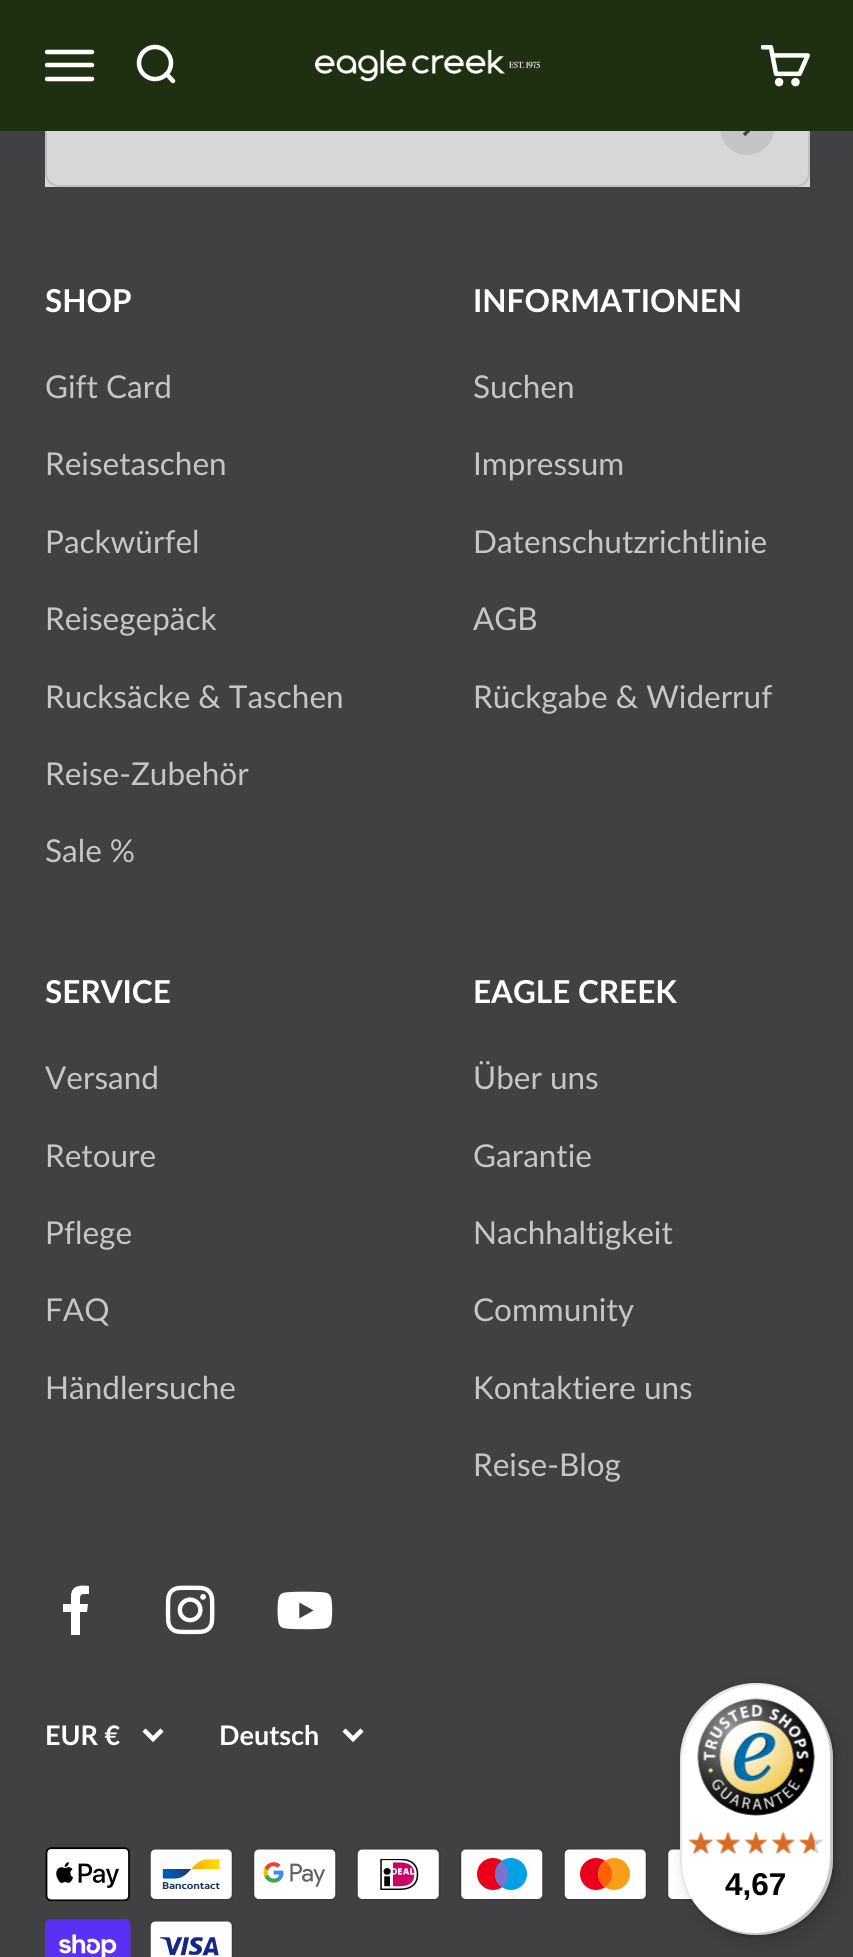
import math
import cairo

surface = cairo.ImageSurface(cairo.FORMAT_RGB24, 853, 1957)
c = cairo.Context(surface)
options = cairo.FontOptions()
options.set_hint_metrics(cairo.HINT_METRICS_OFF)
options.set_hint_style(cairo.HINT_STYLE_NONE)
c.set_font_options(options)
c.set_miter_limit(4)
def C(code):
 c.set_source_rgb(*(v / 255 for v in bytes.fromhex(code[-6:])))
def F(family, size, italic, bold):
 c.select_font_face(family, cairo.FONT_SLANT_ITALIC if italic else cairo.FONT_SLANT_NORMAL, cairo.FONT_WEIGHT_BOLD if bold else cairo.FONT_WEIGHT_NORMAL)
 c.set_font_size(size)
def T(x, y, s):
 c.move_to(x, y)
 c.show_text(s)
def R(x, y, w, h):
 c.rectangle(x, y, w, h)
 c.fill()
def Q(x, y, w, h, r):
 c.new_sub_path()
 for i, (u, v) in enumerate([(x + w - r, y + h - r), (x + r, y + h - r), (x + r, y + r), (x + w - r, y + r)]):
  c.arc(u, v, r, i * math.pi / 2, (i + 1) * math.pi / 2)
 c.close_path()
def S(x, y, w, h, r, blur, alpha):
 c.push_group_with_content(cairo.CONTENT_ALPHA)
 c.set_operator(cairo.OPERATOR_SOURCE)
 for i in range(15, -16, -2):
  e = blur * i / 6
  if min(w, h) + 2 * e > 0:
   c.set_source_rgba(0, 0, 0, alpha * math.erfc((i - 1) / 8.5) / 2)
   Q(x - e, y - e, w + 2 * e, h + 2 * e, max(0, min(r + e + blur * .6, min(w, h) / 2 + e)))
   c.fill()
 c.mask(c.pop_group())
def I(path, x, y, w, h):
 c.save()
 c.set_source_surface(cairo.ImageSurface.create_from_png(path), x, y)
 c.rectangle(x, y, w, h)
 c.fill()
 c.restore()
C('414042')
c.paint()
C('d7d7d7')
R(45,131,765,56)
Q(46,71,763,115,13)
C('c0c0c0')
c.stroke()
C('c4c4c4')
c.arc(747,128,27,0,2 * math.pi)
c.fill()
c.new_path()
c.move_to(744,135)
c.line_to(751,128)
c.line_to(744,121.5)
C('414042')
c.set_line_width(3.4)
c.stroke()
C('1f3012')
R(0,0,853,131)
c.save()
c.rectangle(45,41,50,49)
c.clip()
c.new_path()
c.move_to(47,52)
c.line_to(92,52)
c.move_to(47,65)
c.line_to(92,65)
c.move_to(47,79)
c.line_to(92,79)
C('ffffff')
c.set_line_width(4.5)
c.set_line_cap(cairo.LINE_CAP_ROUND)
c.stroke()
c.restore()
c.arc(155,63,16,0,2 * math.pi)
C('ffffff')
c.set_line_width(4.5)
c.stroke()
c.new_path()
c.move_to(166.5,74)
c.line_to(173,81)
c.set_line_cap(cairo.LINE_CAP_ROUND)
c.set_line_join(cairo.LINE_JOIN_ROUND)
c.stroke()
I('1.png',315,49,225,33)
I('2.png',761,45,49,42)
F('Lato',31.5,0,1)
T(45,312,'SHOP')
F('Lato',31.5,0,0)
C('c6c6c6')
T(45,398,'Gift Card')
T(45,475,'Reisetaschen')
T(45,553,'Packwürfel')
T(45,630,'Reisegepäck')
T(45,708,'Rucksäcke & Taschen')
T(45,785,'Reise-Zubehör')
T(45,862,'Sale %')
F('Lato',31.5,0,1)
C('ffffff')
T(473,312,'INFORMATIONEN')
F('Lato',31.5,0,0)
C('c6c6c6')
T(473,398,'Suchen')
T(473,475,'Impressum')
T(473,553,'Datenschutzrichtlinie')
T(473,630,'AGB')
T(473,708,'Rückgabe & Widerruf')
F('Lato',31.5,0,1)
C('ffffff')
T(45,1003,'SERVICE')
F('Lato',31.5,0,0)
C('c6c6c6')
T(45,1089,'Versand')
T(45,1167,'Retoure')
T(45,1244,'Pflege')
T(45,1321,'FAQ')
T(45,1399,'Händlersuche')
F('Lato',31.5,0,1)
C('ffffff')
T(473,1003,'EAGLE CREEK')
F('Lato',31.5,0,0)
C('c6c6c6')
T(473,1089,'Über uns')
T(473,1167,'Garantie')
T(473,1244,'Nachhaltigkeit')
T(473,1321,'Community')
T(473,1399,'Kontaktiere uns')
T(473,1476,'Reise-Blog')
C('ffffff')
c.set_fill_rule(cairo.FILL_RULE_EVEN_ODD)
c.new_path()
c.move_to(71,1635)
c.line_to(71,1612)
c.line_to(63,1612)
c.line_to(63,1604)
c.line_to(71,1604)
c.line_to(71,1595)
c.curve_to(72,1585,81,1585,89,1586)
c.line_to(89,1594)
c.curve_to(79,1594,80,1594,80,1604)
c.line_to(88,1604)
c.line_to(87,1612)
c.line_to(80,1612)
c.line_to(80,1635)
c.close_path()
c.fill()
I('3.png',165,1585,50,50)
I('4.png',277,1591,56,39)
F('Lato',27,0,1)
T(45,1745,'EUR €')
c.new_path()
c.move_to(144,1730)
c.line_to(153,1739)
c.line_to(162,1730)
c.set_line_cap(cairo.LINE_CAP_BUTT)
c.set_line_join(cairo.LINE_JOIN_MITER)
c.stroke()
T(219,1745,'Deutsch')
c.new_path()
c.move_to(344,1730)
c.line_to(353,1739)
c.line_to(362,1730)
c.stroke()
I('5.png',45,1847,85,54)
I('6.png',149,1848,85,53)
I('7.png',252,1848,85,53)
I('8.png',356,1848,85,53)
I('9.png',459,1848,85,53)
I('10.png',563,1848,85,53)
I('11.png',666,1848,27,53)
I('12.png',45,1919,86,38)
I('13.png',149,1920,85,37)
C('000000')
S(686,1690,153,252,76.5,9,.15)
S(682,1685,153,252,76.5,2,.15)
C('ffffff')
Q(680,1683,153,252,76.5)
c.fill()
c.set_source_rgba(0,0,0,0.1)
c.set_fill_rule(cairo.FILL_RULE_WINDING)
c.new_path()
c.move_to(758,1685)
c.curve_to(783,1685,805,1697,820,1716)
c.curve_to(806,1696,783,1683,756,1683)
c.curve_to(714,1683,680,1717,680,1760)
c.line_to(680,1858)
c.curve_to(680,1878,687,1896,699,1909)
c.curve_to(688,1896,682,1879,682,1861)
c.line_to(682,1762)
c.curve_to(682,1720,716,1685,758,1685)
c.close_path()
c.fill()
c.set_source_rgba(0,0,0,0.2)
c.new_path()
c.move_to(705,1915)
c.curve_to(718,1927,737,1935,756,1935)
c.curve_to(799,1935,833,1901,833,1858)
c.line_to(833,1760)
c.curve_to(833,1734,820,1711,801,1697)
c.curve_to(819,1711,830,1733,830,1757)
c.line_to(830,1856)
c.curve_to(830,1898,796,1933,754,1933)
c.curve_to(735,1933,718,1926,705,1915)
c.close_path()
c.fill()
c.set_source_rgba(0.196,0.196,0.196,0.2)
c.new_path()
c.move_to(716,1923)
c.curve_to(728,1931,742,1935,756,1935)
c.curve_to(799,1935,833,1901,833,1858)
c.line_to(833,1760)
c.curve_to(833,1732,818,1707,796,1694)
c.curve_to(817,1707,831,1731,831,1758)
c.line_to(831,1857)
c.curve_to(831,1899,797,1934,755,1934)
c.curve_to(741,1934,727,1930,716,1923)
c.close_path()
c.fill()
c.set_source_rgba(1,1,1,0.3)
c.new_path()
c.move_to(715,1923)
c.curve_to(727,1931,741,1935,756,1935)
c.curve_to(799,1935,833,1901,833,1858)
c.line_to(833,1760)
c.curve_to(833,1732,818,1707,796,1694)
c.curve_to(817,1707,831,1731,831,1758)
c.line_to(831,1857)
c.curve_to(831,1900,797,1934,755,1934)
c.curve_to(740,1934,727,1930,715,1923)
c.close_path()
c.fill()
I('14.png',697,1698,118,118)
I('15.png',688,1832,25,22)
I('16.png',718,1831,22,23)
I('17.png',745,1832,22,22)
I('18.png',772,1831,24,23)
I('19.png',799,1832,25,22)
I('20.png',688,1831,26,23)
I('21.png',715,1831,26,23)
I('22.png',744,1831,24,23)
I('23.png',771,1831,24,23)
I('24.png',798,1831,17,23)
F('Liberation Sans',31.5,0,1)
C('000000')
T(725,1895,'4,67')
surface.write_to_png('o.png')
